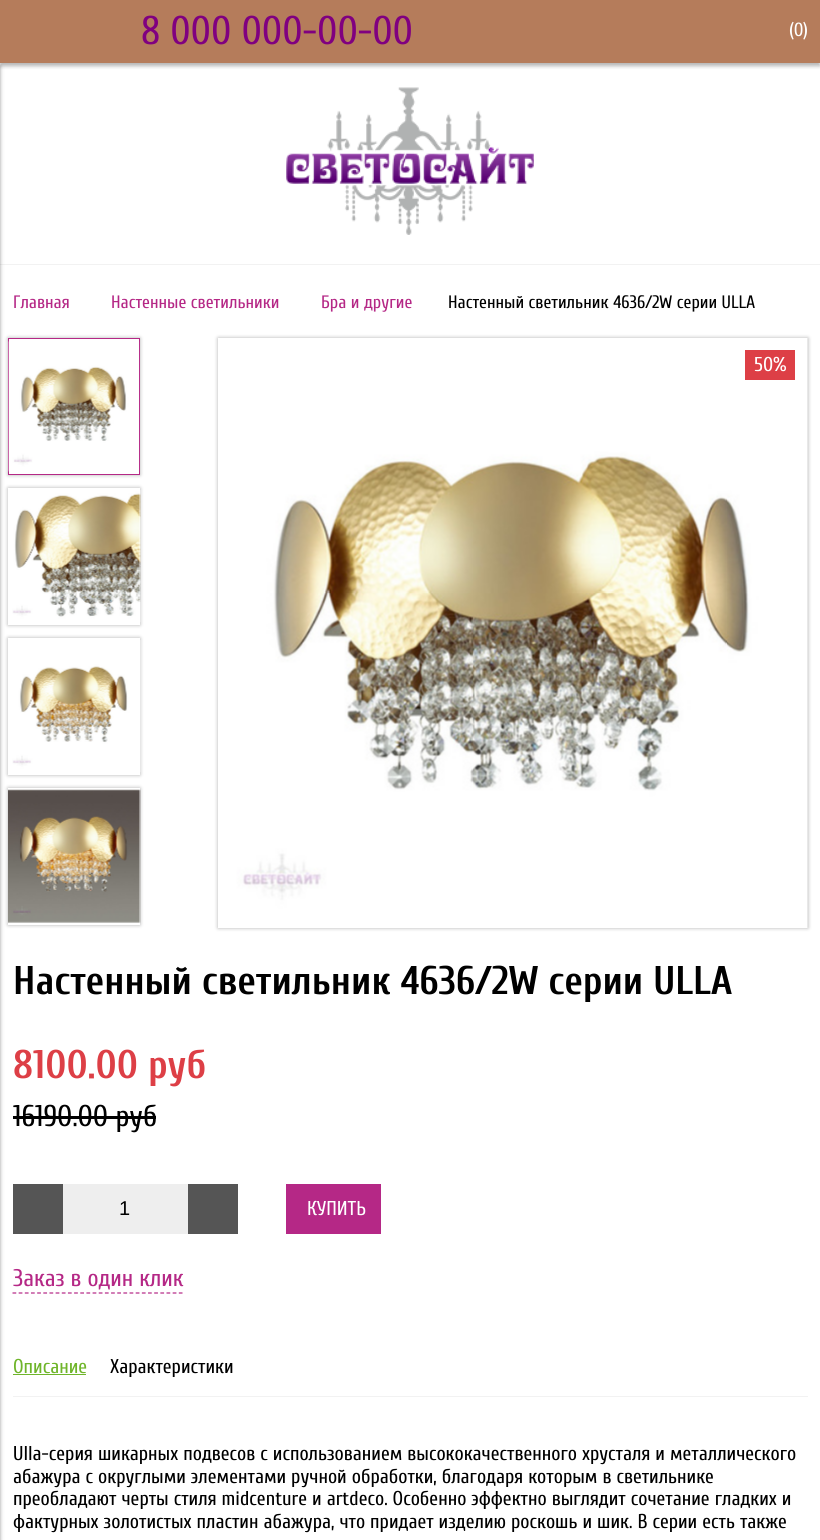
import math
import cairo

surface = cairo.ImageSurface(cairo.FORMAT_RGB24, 820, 1540)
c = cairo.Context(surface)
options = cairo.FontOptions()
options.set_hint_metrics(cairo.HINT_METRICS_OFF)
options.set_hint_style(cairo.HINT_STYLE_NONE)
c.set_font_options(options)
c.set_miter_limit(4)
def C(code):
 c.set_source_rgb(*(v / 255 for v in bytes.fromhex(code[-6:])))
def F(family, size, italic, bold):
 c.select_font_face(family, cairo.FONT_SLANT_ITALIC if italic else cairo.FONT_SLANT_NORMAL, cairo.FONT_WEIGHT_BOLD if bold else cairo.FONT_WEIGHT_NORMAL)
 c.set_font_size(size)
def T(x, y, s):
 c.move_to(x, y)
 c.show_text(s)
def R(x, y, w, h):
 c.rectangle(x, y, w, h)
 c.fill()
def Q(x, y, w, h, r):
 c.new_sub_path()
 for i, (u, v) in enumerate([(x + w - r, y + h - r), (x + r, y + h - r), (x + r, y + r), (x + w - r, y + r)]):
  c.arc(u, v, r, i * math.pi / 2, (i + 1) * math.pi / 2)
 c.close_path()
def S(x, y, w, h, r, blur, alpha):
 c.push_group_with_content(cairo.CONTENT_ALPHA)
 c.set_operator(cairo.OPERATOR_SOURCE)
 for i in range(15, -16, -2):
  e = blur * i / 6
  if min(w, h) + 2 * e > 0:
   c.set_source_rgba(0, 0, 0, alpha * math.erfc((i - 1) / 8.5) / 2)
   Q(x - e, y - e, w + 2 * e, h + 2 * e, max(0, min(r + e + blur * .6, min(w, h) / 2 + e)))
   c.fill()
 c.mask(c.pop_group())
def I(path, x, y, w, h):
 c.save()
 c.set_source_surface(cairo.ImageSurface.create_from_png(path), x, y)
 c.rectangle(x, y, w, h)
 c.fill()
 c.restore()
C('ffffff')
c.paint()
C('000000')
S(0,4,820,62,0,2,.3)
C('b57c5b')
R(0,0,820,63)
F('Cuprum',40,0,0)
C('800080')
T(141,44,'8 000 000-00-00')
F('Cuprum',19,0,0)
C('ffffff')
T(789,36,'(0)')
C('f2f2f2')
R(0,264,820,1)
C('000000')
S(-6,66,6,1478,0,2,.4)
I('1.png',286,87,248,148)
F('Cuprum',18,0,0)
C('b52886')
T(13,308,'Главная')
T(111,308,'Настенные светильники')
T(321,308,'Бра и другие')
C('000000')
T(448,308,'Настенный светильник 4636/2W серии ULLA')
c.save()
c.set_fill_rule(cairo.FILL_RULE_EVEN_ODD)
c.new_path()
c.move_to(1,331)
c.line_to(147,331)
c.line_to(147,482)
c.line_to(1,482)
c.close_path()
c.move_to(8,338)
c.line_to(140,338)
c.line_to(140,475)
c.line_to(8,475)
c.close_path()
c.clip()
C('000000')
S(8,338,132,137,0,2,.3)
c.restore()
c.rectangle(8.5,338.5,131,136)
C('b52886')
c.set_line_width(1)
c.stroke()
I('2.png',8,340,132,132)
c.save()
c.set_fill_rule(cairo.FILL_RULE_EVEN_ODD)
c.new_path()
c.move_to(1,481)
c.line_to(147,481)
c.line_to(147,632)
c.line_to(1,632)
c.close_path()
c.move_to(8,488)
c.line_to(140,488)
c.line_to(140,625)
c.line_to(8,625)
c.close_path()
c.clip()
C('000000')
S(8,488,132,137,0,2,.3)
c.restore()
I('3.png',12,490,129,132)
c.save()
c.set_fill_rule(cairo.FILL_RULE_EVEN_ODD)
c.new_path()
c.move_to(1,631)
c.line_to(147,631)
c.line_to(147,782)
c.line_to(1,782)
c.close_path()
c.move_to(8,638)
c.line_to(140,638)
c.line_to(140,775)
c.line_to(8,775)
c.close_path()
c.clip()
C('000000')
S(8,638,132,137,0,2,.3)
c.restore()
I('4.png',12,640,129,132)
c.save()
c.set_fill_rule(cairo.FILL_RULE_EVEN_ODD)
c.new_path()
c.move_to(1,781)
c.line_to(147,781)
c.line_to(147,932)
c.line_to(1,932)
c.close_path()
c.move_to(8,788)
c.line_to(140,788)
c.line_to(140,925)
c.line_to(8,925)
c.close_path()
c.clip()
C('000000')
S(8,788,132,137,0,2,.3)
c.restore()
I('5.png',8,789,133,134)
C('000000')
S(218,338,590,590,0,2,.3)
I('6.png',218,338,590,590)
C('dd3f46')
R(745,350,50,30)
F('Cuprum',20,0,0)
C('ffffff')
T(754,371,'50%')
F('Cuprum',40,0,1)
C('000000')
T(13,994,'Настенный светильник 4636/2W серии ULLA')
C('dd3f46')
T(13,1078,'8100.00 руб')
F('Cuprum',30,0,0)
C('000000')
T(13,1126,'16190.00 руб')
R(13,1116,143,3)
C('555555')
R(13,1184,50,50)
C('eeeeee')
R(63,1184,125,50)
F('Liberation Sans',20,0,0)
C('000000')
T(119,1215,'1')
C('555555')
R(188,1184,50,50)
C('b52886')
R(286,1184,95,50)
F('Cuprum',20,0,0)
C('ffffff')
T(307,1215,'КУПИТЬ')
F('Cuprum',24,0,0)
C('b52886')
T(13,1286,'Заказ в один клик')
c.new_path()
c.move_to(12.5,1293)
c.line_to(182.5,1293)
c.set_line_width(1.2)
c.set_dash([3.75,2.41])
c.stroke()
C('f2f2f2')
R(13,1396,795,1)
F('Cuprum',20,0,0)
C('6fb52a')
T(13,1373,'Описание')
R(13,1374,73,1)
C('000000')
T(110,1373,'Характеристики')
T(13,1460,'Ulla-серия шикарных подвесов с использованием высококачественного хрусталя и металлического')
T(13,1483,'абажура с округлыми элементами ручной обработки, благодаря которым в светильнике')
T(13,1505,'преобладают черты стиля midcenture и artdeco. Особенно эффектно выглядит сочетание гладких и')
T(13,1528,'фактурных золотистых пластин абажура, что придает изделию роскошь и шик. В серии есть также')
surface.write_to_png('o.png')
